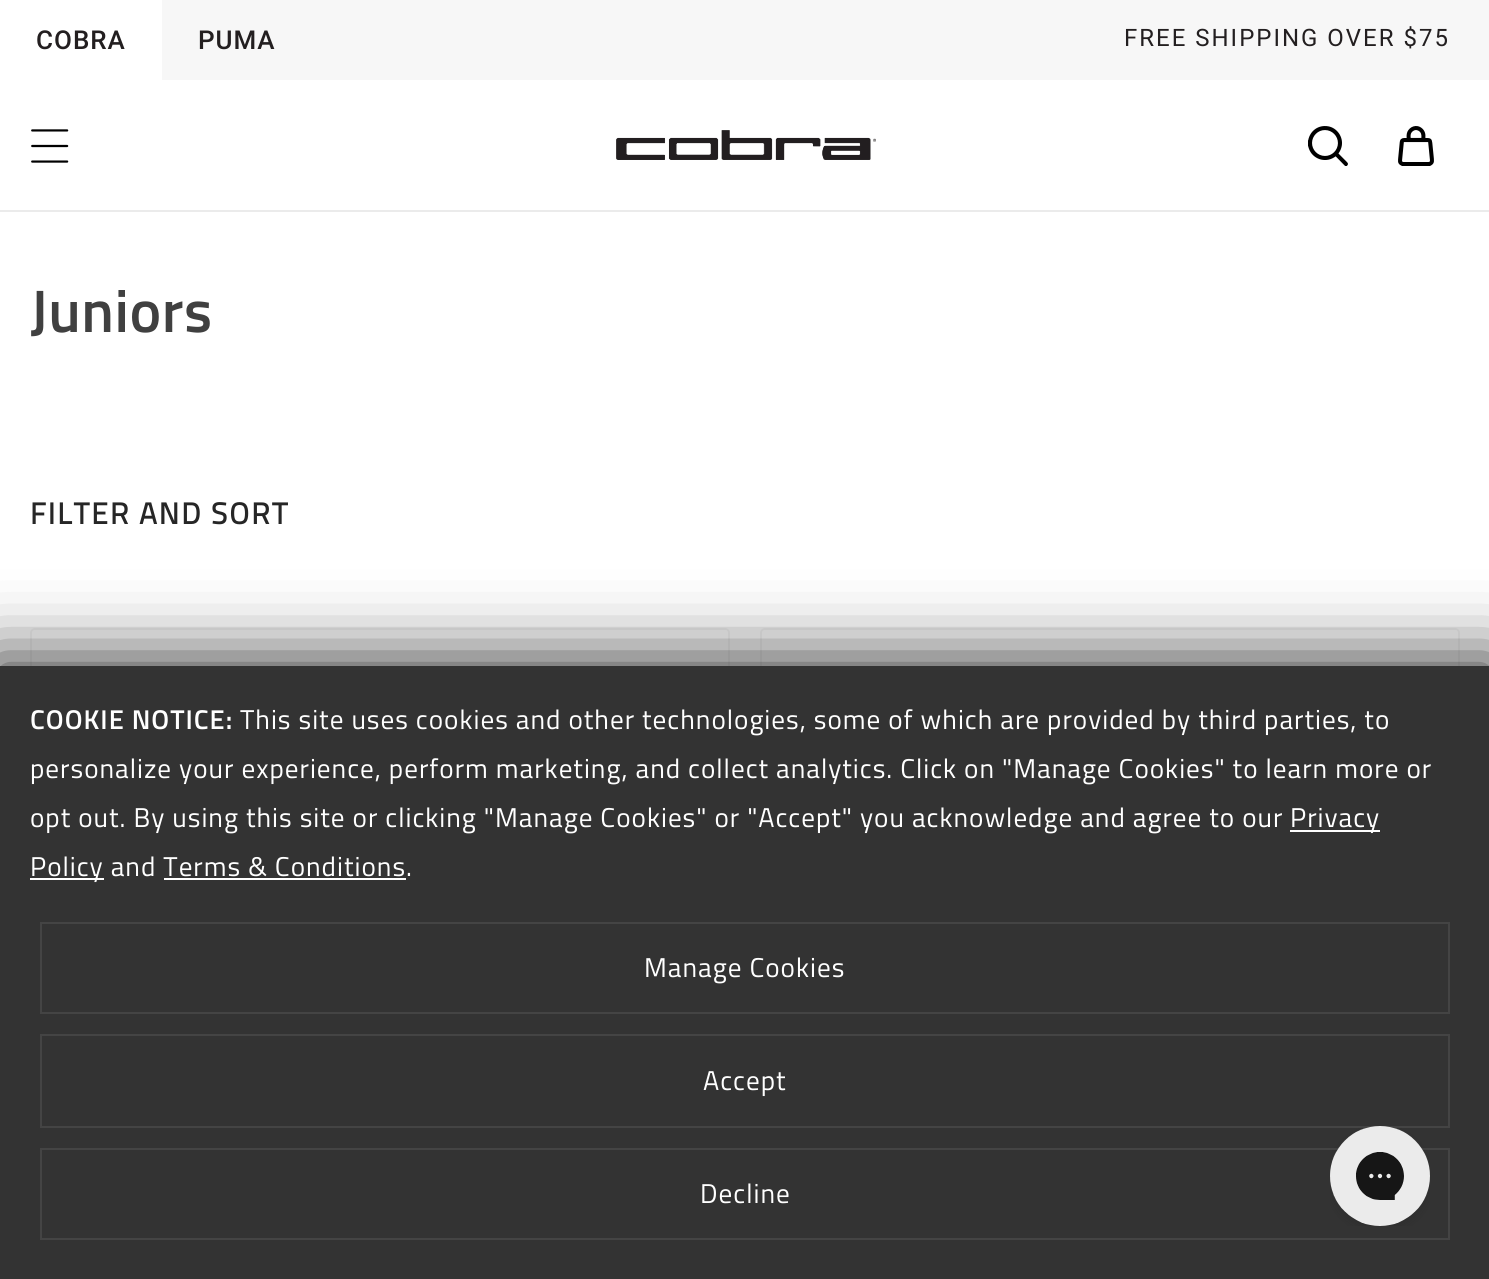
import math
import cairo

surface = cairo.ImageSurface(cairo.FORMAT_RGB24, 1489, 1279)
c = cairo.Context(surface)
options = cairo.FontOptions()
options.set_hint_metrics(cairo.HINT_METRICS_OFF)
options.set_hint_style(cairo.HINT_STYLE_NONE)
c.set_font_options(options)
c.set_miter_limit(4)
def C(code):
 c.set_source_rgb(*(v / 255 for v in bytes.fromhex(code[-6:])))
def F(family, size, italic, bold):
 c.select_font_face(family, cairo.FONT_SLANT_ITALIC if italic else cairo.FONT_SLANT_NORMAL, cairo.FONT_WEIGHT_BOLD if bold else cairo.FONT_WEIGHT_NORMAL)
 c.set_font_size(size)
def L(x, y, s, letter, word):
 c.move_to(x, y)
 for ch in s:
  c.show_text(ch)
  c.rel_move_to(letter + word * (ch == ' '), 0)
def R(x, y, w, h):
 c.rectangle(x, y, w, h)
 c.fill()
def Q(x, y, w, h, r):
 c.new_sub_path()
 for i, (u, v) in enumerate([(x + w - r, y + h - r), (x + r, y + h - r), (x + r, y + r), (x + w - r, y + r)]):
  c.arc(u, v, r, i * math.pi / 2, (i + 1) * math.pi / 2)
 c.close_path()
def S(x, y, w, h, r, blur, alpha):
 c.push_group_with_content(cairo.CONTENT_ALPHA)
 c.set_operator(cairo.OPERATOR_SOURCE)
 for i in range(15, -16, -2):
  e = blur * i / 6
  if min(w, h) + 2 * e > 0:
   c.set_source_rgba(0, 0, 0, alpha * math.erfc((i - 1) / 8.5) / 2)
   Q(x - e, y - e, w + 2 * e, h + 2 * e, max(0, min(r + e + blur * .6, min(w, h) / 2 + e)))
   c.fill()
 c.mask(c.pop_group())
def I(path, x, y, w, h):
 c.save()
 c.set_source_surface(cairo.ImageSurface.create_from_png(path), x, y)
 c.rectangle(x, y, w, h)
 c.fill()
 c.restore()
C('ffffff')
c.paint()
C('f7f7f7')
R(162,0,1327,80)
F('Roboto Medium',26,0,0)
C('231f20')
L(36,49,'COBRA',1,0)
L(198,49,'PUMA',1,0)
F('Roboto',24,0,0)
L(1124,46,'FREE SHIPPING OVER $75',2,0)
C('ebebeb')
R(0,210,1489,2)
I('1.png',31,129,38,34)
I('2.png',616,130,260,30)
I('3.png',1308,126,40,40)
I('4.png',1398,126,36,40)
F('Titillium Web SemiBold',60,0,0)
C('404040')
L(30,332,'Juniors',.5,0)
F('Titillium Web',30,0,1)
C('262626')
L(30,524,'FILTER AND SORT',2,0)
Q(31,629,698,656,4)
C('f5f5f5')
c.stroke()
I('5.png',32,630,696,36)
Q(761,629,698,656,4)
c.stroke()
I('5.png',762,630,696,36)
C('000000')
S(-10,656,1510,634,0,35,.75)
C('333333')
R(0,666,1489,613)
F('Titillium Web SemiBold',27.2,0,0)
C('ffffff')
L(30,729,'COOKIE NOTICE:',1,0)
F('Titillium Web',27.2,0,0)
L(240,729,'This site uses cookies and other technologies, some of which are provided by third parties, to',1,0)
L(30,778,'personalize your experience, perform marketing, and collect analytics. Click on "Manage Cookies" to learn more or',1,0)
L(30,827,'opt out. By using this site or clicking "Manage Cookies" or "Accept" you acknowledge and agree to our',1,0)
R(1290,830,90,2)
L(1290,827,'Privacy',1,0)
R(30,878,74,2)
L(30,876,'Policy and Terms & Conditions.',1,0)
R(164,878,242,2)
c.rectangle(41,923,1408,90)
C('444444')
c.stroke()
C('ffffff')
L(644,977,'Manage Cookies',1,0)
c.rectangle(41,1035,1408,92)
C('444444')
c.stroke()
C('ffffff')
L(703,1090,'Accept',1,0)
c.rectangle(41,1149,1408,90)
C('444444')
c.stroke()
C('ffffff')
L(700,1203,'Decline',1,0)
I('6.png',1330,1126,100,100)
surface.write_to_png('o.png')
